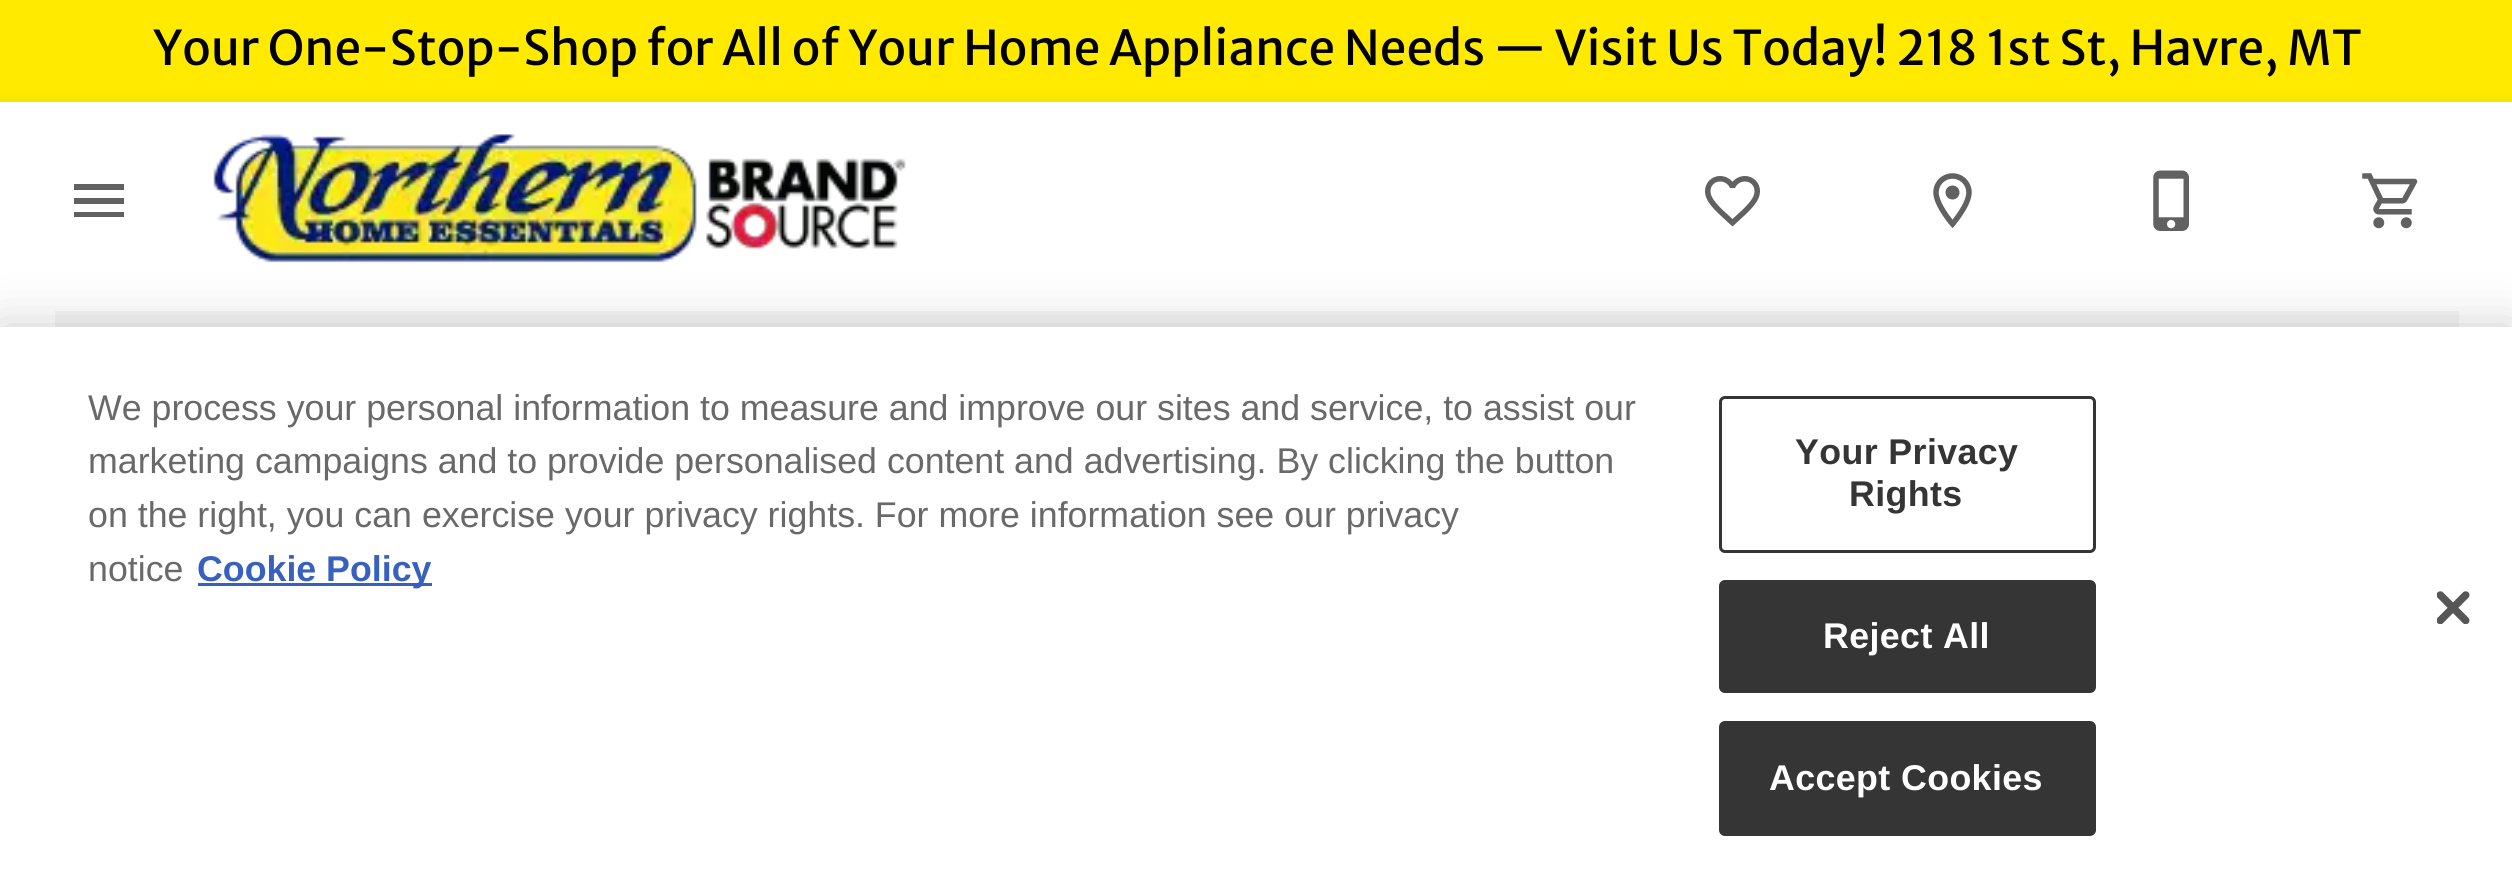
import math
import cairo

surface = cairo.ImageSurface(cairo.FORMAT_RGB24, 2512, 889)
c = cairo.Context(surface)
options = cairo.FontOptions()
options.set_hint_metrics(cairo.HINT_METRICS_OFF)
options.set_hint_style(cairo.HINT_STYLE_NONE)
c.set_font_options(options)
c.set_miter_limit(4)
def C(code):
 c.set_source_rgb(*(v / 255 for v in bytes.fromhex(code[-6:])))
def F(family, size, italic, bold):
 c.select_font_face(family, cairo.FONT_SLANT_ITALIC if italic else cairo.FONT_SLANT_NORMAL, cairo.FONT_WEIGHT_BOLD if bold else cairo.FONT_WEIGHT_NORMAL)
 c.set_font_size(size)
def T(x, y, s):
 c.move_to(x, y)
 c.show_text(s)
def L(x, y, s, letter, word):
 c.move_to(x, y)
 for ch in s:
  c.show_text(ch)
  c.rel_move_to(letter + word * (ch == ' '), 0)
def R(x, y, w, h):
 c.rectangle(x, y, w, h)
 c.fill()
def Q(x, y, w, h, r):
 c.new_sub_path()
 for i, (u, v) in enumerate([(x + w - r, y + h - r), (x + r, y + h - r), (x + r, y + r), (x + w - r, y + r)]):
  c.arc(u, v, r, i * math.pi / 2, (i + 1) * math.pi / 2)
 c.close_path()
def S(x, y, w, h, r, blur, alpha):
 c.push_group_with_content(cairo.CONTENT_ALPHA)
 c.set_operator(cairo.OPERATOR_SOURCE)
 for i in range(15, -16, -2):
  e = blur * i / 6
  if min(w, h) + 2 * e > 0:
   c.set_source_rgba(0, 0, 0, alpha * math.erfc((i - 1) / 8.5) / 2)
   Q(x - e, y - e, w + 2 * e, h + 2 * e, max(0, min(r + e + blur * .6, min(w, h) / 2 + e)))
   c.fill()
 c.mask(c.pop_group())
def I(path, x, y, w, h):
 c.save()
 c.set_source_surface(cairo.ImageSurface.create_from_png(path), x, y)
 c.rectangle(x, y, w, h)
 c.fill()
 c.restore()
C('ffea00')
c.paint()
F('Merriweather Sans',47.75,0,0)
C('000000')
T(153,65,'Your One-Stop-Shop for All of Your Home Appliance Needs — Visit Us Today! 218 1st St, Havre, MT')
C('000000')
S(0,105,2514,363,0,7,.12)
C('ffffff')
R(0,102,2512,225)
C('616161')
c.new_path()
c.move_to(74,217)
c.line_to(124,217)
c.line_to(124,212)
c.line_to(74,212)
c.close_path()
c.move_to(74,204)
c.line_to(124,204)
c.line_to(124,198)
c.line_to(74,198)
c.close_path()
c.move_to(74,184)
c.line_to(74,190)
c.line_to(124,190)
c.line_to(124,184)
c.close_path()
c.fill()
I('1.png',213,134,693,129)
I('2.png',1705,176,55,51)
I('3.png',1933,173,39,56)
I('4.png',2153,170,36,61)
I('5.png',2362,173,56,56)
C('f5f5f5')
R(55,311,2404,16)
C('000000')
S(0,327,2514,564,0,25,.2)
C('ffffff')
R(0,327,2512,562)
F('Liberation Sans',35.75,0,0)
C('696969')
T(88,420,'We process your personal information to measure and improve our sites and service, to assist our')
T(88,473,'marketing campaigns and to provide personalised content and advertising. By clicking the button')
T(88,527,'on the right, you can exercise your privacy rights. For more information see our privacy')
T(88,581,'notice')
C('3860be')
R(198,583,234,3)
F('Liberation Sans',35.75,0,1)
T(197,581,'Cookie Policy')
Q(1720.5,397.5,374,154,4.5)
C('353535')
c.set_line_width(3)
c.stroke()
L(1795,464,'Your Privacy',.4,0)
L(1849,506,'Rights',.4,0)
Q(1720.5,581.5,374,110,4.5)
c.fill_preserve()
c.stroke()
C('ffffff')
L(1823,648,'Reject All',.4,0)
C('353535')
Q(1720.5,722.5,374,112,4.5)
c.fill_preserve()
c.stroke()
C('ffffff')
L(1769,790,'Accept Cookies',.4,0)
I('6.png',2437,591,33,33)
surface.write_to_png('o.png')
